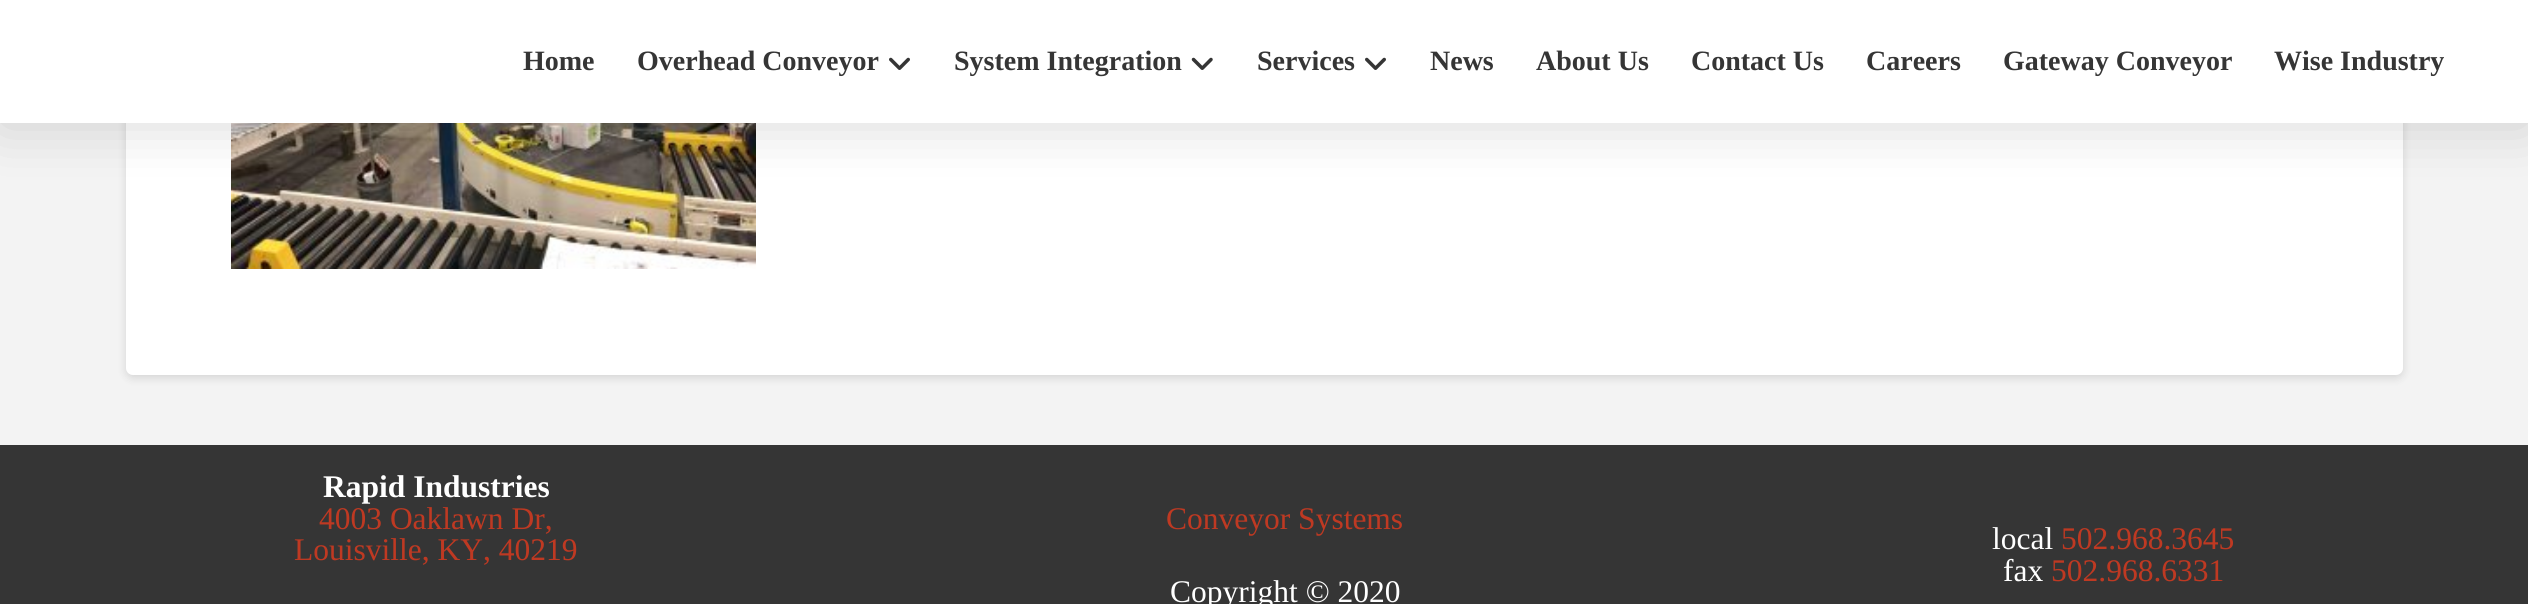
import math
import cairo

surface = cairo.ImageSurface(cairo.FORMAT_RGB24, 2528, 604)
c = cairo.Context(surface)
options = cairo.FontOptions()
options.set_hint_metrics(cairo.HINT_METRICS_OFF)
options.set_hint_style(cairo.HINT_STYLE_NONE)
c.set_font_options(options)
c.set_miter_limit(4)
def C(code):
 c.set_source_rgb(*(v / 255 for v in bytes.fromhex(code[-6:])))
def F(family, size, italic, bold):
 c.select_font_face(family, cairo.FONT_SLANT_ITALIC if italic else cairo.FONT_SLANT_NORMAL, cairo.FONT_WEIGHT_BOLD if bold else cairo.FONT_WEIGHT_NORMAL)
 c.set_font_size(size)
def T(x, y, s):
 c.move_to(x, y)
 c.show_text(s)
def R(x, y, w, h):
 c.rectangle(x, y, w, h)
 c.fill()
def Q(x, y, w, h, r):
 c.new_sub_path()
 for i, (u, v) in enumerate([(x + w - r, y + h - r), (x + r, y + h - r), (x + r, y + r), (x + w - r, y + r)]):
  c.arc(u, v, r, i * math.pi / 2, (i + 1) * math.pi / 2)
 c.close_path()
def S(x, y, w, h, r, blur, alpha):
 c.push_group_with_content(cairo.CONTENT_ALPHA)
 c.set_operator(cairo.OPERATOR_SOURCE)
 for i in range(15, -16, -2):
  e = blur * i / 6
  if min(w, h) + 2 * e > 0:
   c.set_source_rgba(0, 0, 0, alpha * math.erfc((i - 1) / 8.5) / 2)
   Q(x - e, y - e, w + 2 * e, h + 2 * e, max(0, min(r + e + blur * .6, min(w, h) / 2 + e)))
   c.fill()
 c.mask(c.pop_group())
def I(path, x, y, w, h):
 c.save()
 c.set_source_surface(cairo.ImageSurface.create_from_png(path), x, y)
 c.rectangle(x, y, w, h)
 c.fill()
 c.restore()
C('f3f3f3')
c.paint()
C('000000')
S(126,-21,2277,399,7,4.5,.13)
C('ffffff')
Q(126,-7,2277,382,7)
c.fill()
I('1.png',231,123,525,146)
C('000000')
S(0,4,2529,122,0,28,.15)
C('ffffff')
R(0,0,2528,123)
F('Liberation Serif',28,0,1)
C('353535')
T(523,70,'Home')
T(637,70,'Overhead Conveyor')
I('2.png',889,57,21,13)
T(954,70,'System Integration')
I('3.png',1191,57,22,13)
T(1257,70,'Services')
I('2.png',1365,57,21,13)
T(1430,70,'News')
T(1536,70,'About Us')
T(1691,70,'Contact Us')
T(1866,70,'Careers')
T(2003,70,'Gateway Conveyor')
T(2274,70,'Wise Industry')
R(0,445,2528,159)
F('Liberation Serif',31.5,0,1)
C('ffffff')
T(323,497,'Rapid Industries')
F('Liberation Serif',31.5,0,0)
C('bf3922')
T(319,529,'4003 Oaklawn Dr,')
T(294,560,'Louisville, KY, 40219')
T(1166,529,'Conveyor Systems')
C('ffffff')
T(1170,602,'Copyright © 2020')
T(1992,549,'local')
C('bf3922')
T(2061,549,'502.968.3645')
C('ffffff')
T(2003,581,'fax')
C('bf3922')
T(2051,581,'502.968.6331')
surface.write_to_png('o.png')
